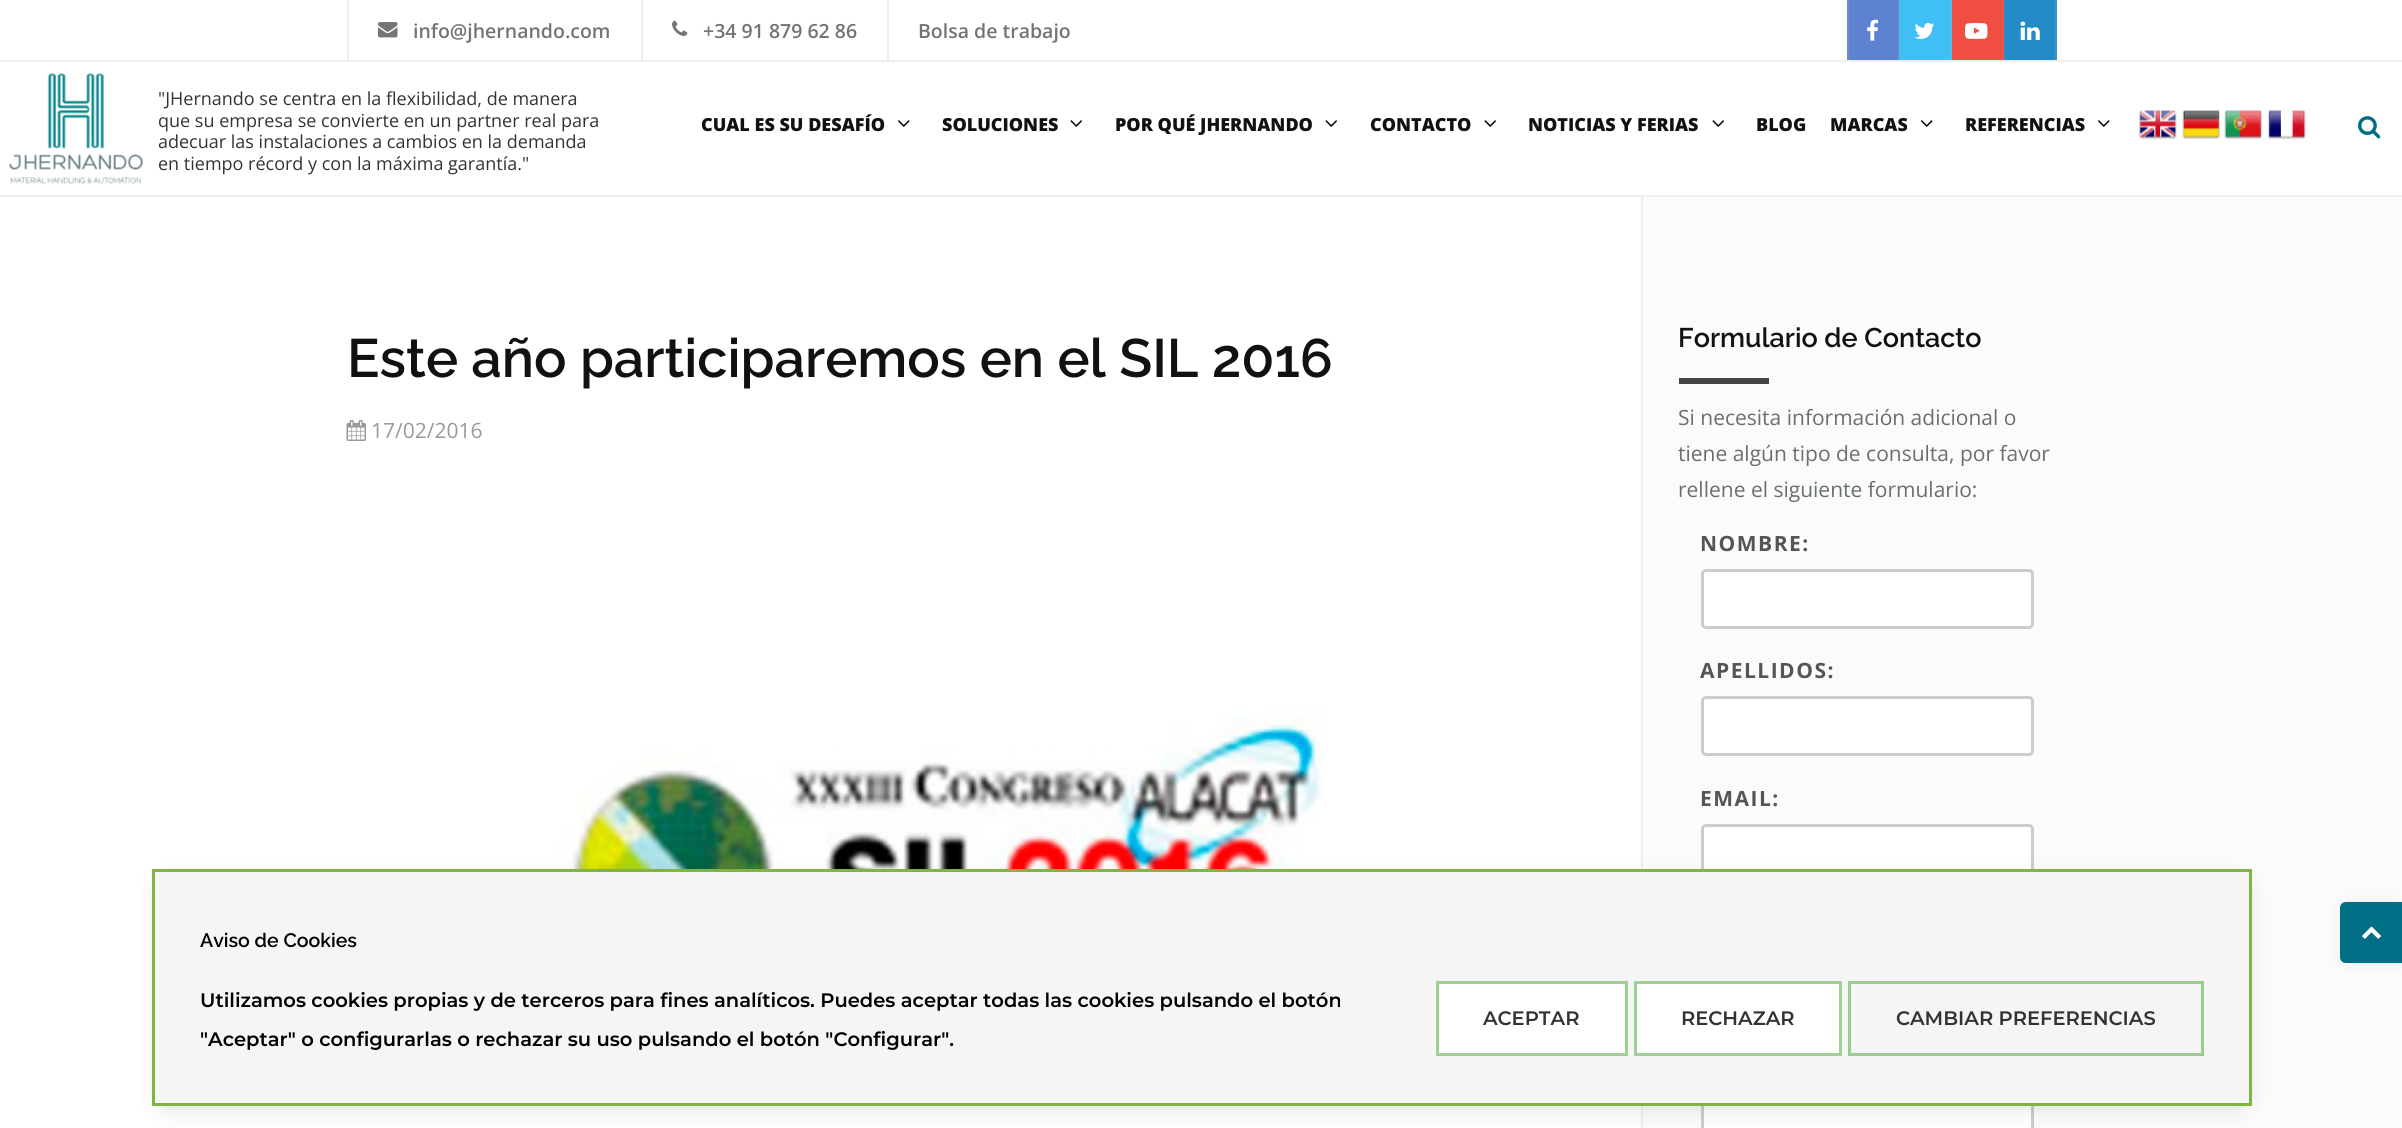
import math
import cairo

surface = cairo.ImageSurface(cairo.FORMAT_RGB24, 2402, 1128)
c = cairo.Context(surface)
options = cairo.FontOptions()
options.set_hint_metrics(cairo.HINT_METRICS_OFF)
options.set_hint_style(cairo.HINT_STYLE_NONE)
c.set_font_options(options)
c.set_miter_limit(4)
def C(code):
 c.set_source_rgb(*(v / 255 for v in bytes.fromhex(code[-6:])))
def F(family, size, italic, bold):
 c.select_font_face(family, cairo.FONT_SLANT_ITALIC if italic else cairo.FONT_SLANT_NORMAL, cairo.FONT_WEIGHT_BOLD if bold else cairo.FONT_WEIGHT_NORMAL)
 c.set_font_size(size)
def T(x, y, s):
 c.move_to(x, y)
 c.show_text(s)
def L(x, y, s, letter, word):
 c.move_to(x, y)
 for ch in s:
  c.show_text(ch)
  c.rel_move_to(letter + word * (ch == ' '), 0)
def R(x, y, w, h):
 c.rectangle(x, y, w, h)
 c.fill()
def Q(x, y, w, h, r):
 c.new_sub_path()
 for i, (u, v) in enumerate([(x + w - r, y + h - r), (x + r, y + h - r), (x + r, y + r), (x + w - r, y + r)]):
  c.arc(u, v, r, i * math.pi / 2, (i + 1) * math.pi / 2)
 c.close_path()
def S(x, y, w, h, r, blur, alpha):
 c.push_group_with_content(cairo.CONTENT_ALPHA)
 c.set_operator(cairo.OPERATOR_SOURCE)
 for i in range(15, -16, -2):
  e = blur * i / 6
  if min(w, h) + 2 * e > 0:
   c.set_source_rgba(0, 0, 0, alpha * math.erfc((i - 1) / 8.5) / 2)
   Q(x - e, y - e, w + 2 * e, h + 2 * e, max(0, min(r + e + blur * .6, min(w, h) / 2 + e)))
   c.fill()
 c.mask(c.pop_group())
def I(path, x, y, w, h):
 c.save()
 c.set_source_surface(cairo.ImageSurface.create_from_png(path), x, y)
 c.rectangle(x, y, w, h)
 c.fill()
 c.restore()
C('ffffff')
c.paint()
C('eeeeee')
R(0,60,2402,2)
R(347,0,2,60)
I('1.png',378,22,20,16)
F('Open Sans SemiBold',19.5,0,0)
C('747474')
T(413,38,'info@jhernando.com')
C('eeeeee')
R(641,0,2,60)
I('2.png',672,20,16,16)
C('747474')
T(703,38,'+34 91 879 62 86')
C('eeeeee')
R(887,0,2,60)
C('747474')
T(918,38,'Bolsa de trabajo')
C('5d82d1')
R(1849,0,49,60)
C('6e8ccb')
R(1898,0,1,60)
R(1847,0,2,60)
I('3.png',1867,19,12,22)
C('40bff5')
R(1899,0,51,60)
C('57bde8')
R(1950,0,2,60)
I('4.png',1914,22,21,17)
C('ef4e41')
R(1952,0,51,60)
C('e36258')
R(2003,0,1,60)
I('5.png',1965,23,23,16)
C('238cc8')
R(2004,0,51,60)
C('4094c4')
R(2055,0,2,60)
I('6.png',2020,21,20,19)
C('eeeeee')
R(0,195,2402,2)
I('7.png',8,73,135,111)
F('Open Sans',18,0,0)
C('333333')
T(158,105,'"JHernando se centra en la flexibilidad, de manera')
T(158,127,'que su empresa se convierte en un partner real para')
T(158,148,'adecuar las instalaciones a cambios en la demanda')
T(158,170,'en tiempo récord y con la máxima garantía."')
F('Open Sans ExtraBold',18,0,0)
C('111111')
T(701,131,'CUAL ES SU DESAFÍO')
I('8.png',898,120,12,7)
T(942,131,'SOLUCIONES')
I('9.png',1070,120,12,7)
T(1115,131,'POR QUÉ JHERNANDO')
I('9.png',1325,120,12,7)
T(1370,131,'CONTACTO')
I('9.png',1484,120,12,7)
T(1528,131,'NOTICIAS Y FERIAS')
I('9.png',1712,120,12,7)
T(1756,131,'BLOG')
T(1830,131,'MARCAS')
I('8.png',1921,120,12,7)
T(1965,131,'REFERENCIAS')
I('8.png',2098,120,12,7)
I('10.png',2139,110,38,30)
I('11.png',2182,110,38,30)
I('12.png',2224,110,38,30)
I('13.png',2268,110,38,30)
I('14.png',2358,116,23,23)
F('Raleway SemiBold',54,0,0)
T(347,377,'Este año participaremos en el SIL 2016')
I('15.png',346,420,20,21)
F('Open Sans',21,0,0)
C('999999')
T(371,438,'17/02/2016')
I('16.png',549,709,775,160)
C('fbfbfb')
R(1643,197,759,931)
C('eeeeee')
R(1641,197,2,931)
F('Raleway SemiBold',27,0,0)
C('111111')
T(1678,347,'Formulario de Contacto')
C('444444')
R(1679,378,90,6)
F('Open Sans',21,0,0)
C('696f6f')
T(1678,425,'Si necesita información adicional o')
T(1678,461,'tiene algún tipo de consulta, por favor')
T(1678,497,'rellene el siguiente formulario:')
F('Open Sans',21,0,1)
C('555555')
L(1700,551,'NOMBRE:',1.5,0)
C('ffffff')
Q(1702.5,570.5,330,57,3.5)
c.fill_preserve()
C('cccccc')
c.set_line_width(3)
c.stroke()
C('555555')
L(1700,678,'APELLIDOS:',1.5,0)
C('ffffff')
Q(1702.5,697.5,330,57,3.5)
c.fill_preserve()
C('cccccc')
c.stroke()
C('555555')
L(1700,806,'EMAIL:',1.5,0)
C('ffffff')
Q(1702.5,825.5,330,57,3.5)
c.fill_preserve()
C('cccccc')
c.stroke()
C('ffffff')
R(1704,1106,327,22)
c.rectangle(1702.5,1080.5,330,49)
C('cccccc')
c.stroke()
C('000000')
S(167,891,2070,207,0,15,.25)
C('f5f5f5')
c.rectangle(153.5,870.5,2097,234)
c.fill_preserve()
C('81b441')
c.stroke()
F('Raleway SemiBold',19.5,0,0)
C('000000')
T(200,947,'Aviso de Cookies')
F('Montserrat SemiBold',19.5,0,0)
T(200,1007,'Utilizamos cookies propias y de terceros para fines analíticos. Puedes aceptar todas las cookies pulsando el botón')
T(200,1046,'"Aceptar" o configurarlas o rechazar su uso pulsando el botón "Configurar".')
C('ffffff')
c.rectangle(1437.5,982.5,189,72)
c.fill_preserve()
C('a0d095')
c.stroke()
C('333333')
T(1483,1025,'ACEPTAR')
C('ffffff')
c.rectangle(1635.5,982.5,205,72)
c.fill_preserve()
C('a0d095')
c.stroke()
C('333333')
T(1681,1025,'RECHAZAR')
c.rectangle(1849.5,982.5,353,72)
C('9acb8f')
c.stroke()
C('333333')
T(1896,1025,'CAMBIAR PREFERENCIAS')
C('000000')
S(2340,902,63,61,6,7.5,.05)
C('006f86')
c.new_path()
c.move_to(2346,902)
c.line_to(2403,902)
c.line_to(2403,963)
c.line_to(2346,963)
c.curve_to(2342.5,963,2340,960.5,2340,957)
c.line_to(2340,908)
c.curve_to(2340,904.5,2342.5,902,2346,902)
c.close_path()
c.fill()
I('17.png',2362,926,19,13)
surface.write_to_png('o.png')
